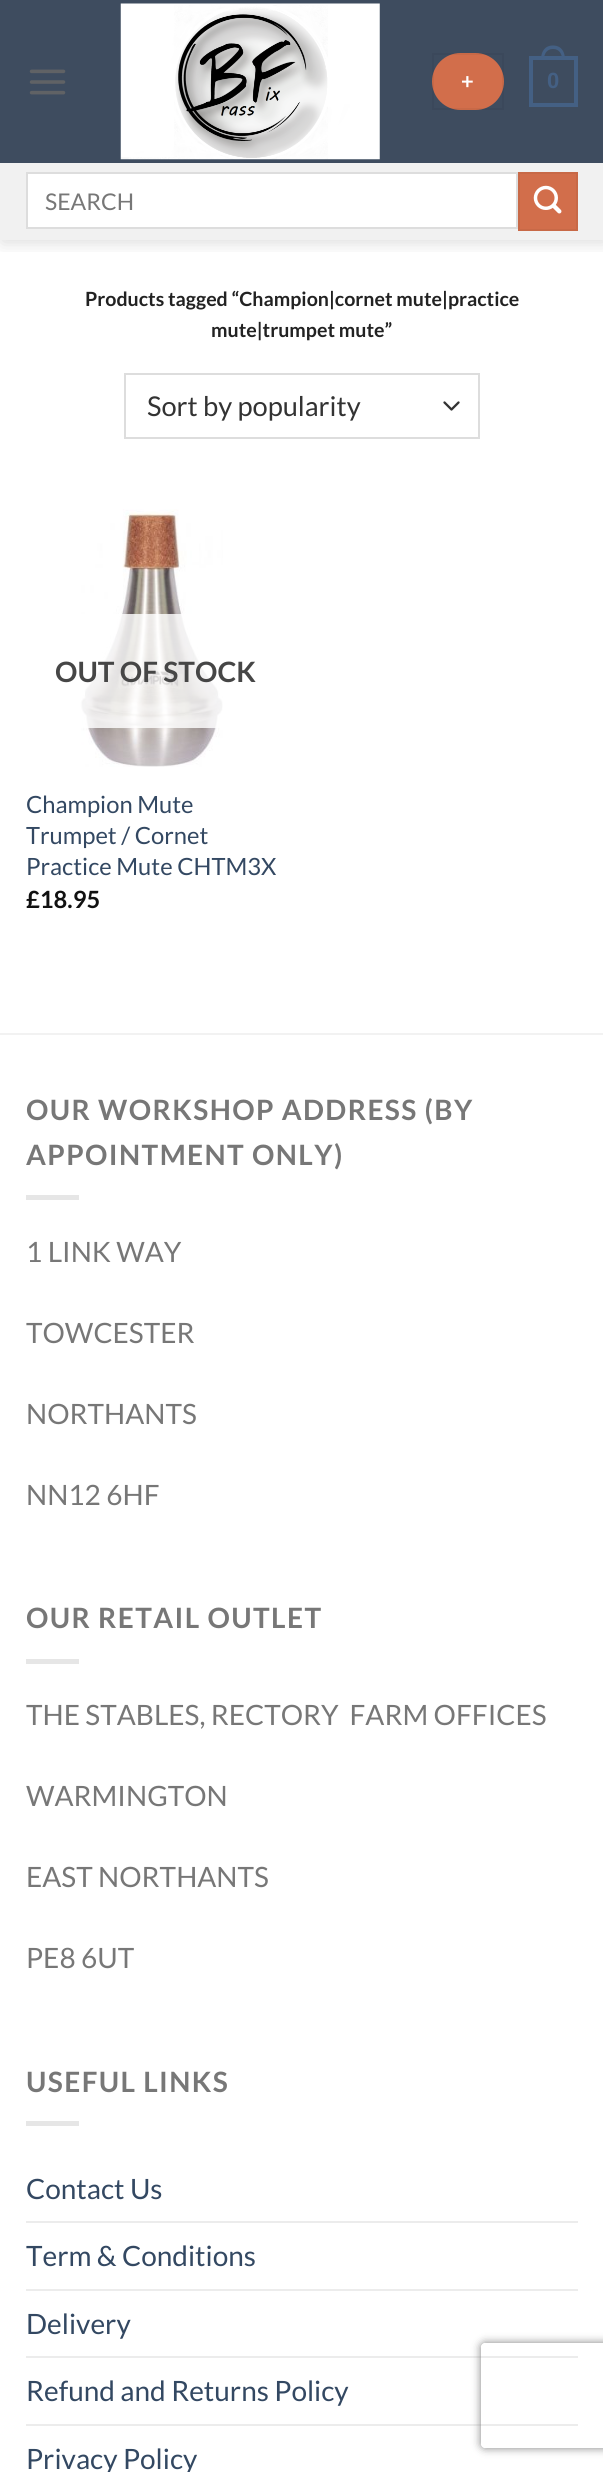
import math
import cairo

surface = cairo.ImageSurface(cairo.FORMAT_RGB24, 603, 2472)
c = cairo.Context(surface)
options = cairo.FontOptions()
options.set_hint_metrics(cairo.HINT_METRICS_OFF)
options.set_hint_style(cairo.HINT_STYLE_NONE)
c.set_font_options(options)
c.set_miter_limit(4)
def C(code):
 c.set_source_rgb(*(v / 255 for v in bytes.fromhex(code[-6:])))
def F(family, size, italic, bold):
 c.select_font_face(family, cairo.FONT_SLANT_ITALIC if italic else cairo.FONT_SLANT_NORMAL, cairo.FONT_WEIGHT_BOLD if bold else cairo.FONT_WEIGHT_NORMAL)
 c.set_font_size(size)
def T(x, y, s):
 c.move_to(x, y)
 c.show_text(s)
def L(x, y, s, letter, word):
 c.move_to(x, y)
 for ch in s:
  c.show_text(ch)
  c.rel_move_to(letter + word * (ch == ' '), 0)
def R(x, y, w, h):
 c.rectangle(x, y, w, h)
 c.fill()
def Q(x, y, w, h, r):
 c.new_sub_path()
 for i, (u, v) in enumerate([(x + w - r, y + h - r), (x + r, y + h - r), (x + r, y + r), (x + w - r, y + r)]):
  c.arc(u, v, r, i * math.pi / 2, (i + 1) * math.pi / 2)
 c.close_path()
def S(x, y, w, h, r, blur, alpha):
 c.push_group_with_content(cairo.CONTENT_ALPHA)
 c.set_operator(cairo.OPERATOR_SOURCE)
 for i in range(15, -16, -2):
  e = blur * i / 6
  if min(w, h) + 2 * e > 0:
   c.set_source_rgba(0, 0, 0, alpha * math.erfc((i - 1) / 8.5) / 2)
   Q(x - e, y - e, w + 2 * e, h + 2 * e, max(0, min(r + e + blur * .6, min(w, h) / 2 + e)))
   c.fill()
 c.mask(c.pop_group())
def I(path, x, y, w, h):
 c.save()
 c.set_source_surface(cairo.ImageSurface.create_from_png(path), x, y)
 c.rectangle(x, y, w, h)
 c.fill()
 c.restore()
C('ffffff')
c.paint()
c.save()
c.rectangle(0,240,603,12)
c.clip()
C('000000')
S(2,2,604,240,0,9,.15)
c.restore()
c.set_source_rgba(0.008,0.082,0.176,0.76)
R(0,0,603,163)
I('1.png',29,69,37,26)
I('2.png',120,3,260,157)
C('d26e4b')
Q(432,53,72,57,28.5)
c.fill()
c.rectangle(433,54,70,55)
c.set_source_rgba(0,0,0,0.05)
c.stroke()
F('Lato',22,0,1)
C('ffffff')
L(461,89,'+',1,0)
c.rectangle(531,58,45,47)
C('446084')
c.set_line_width(4)
c.stroke()
c.set_fill_rule(cairo.FILL_RULE_EVEN_ODD)
c.new_path()
c.move_to(553,45.5)
c.curve_to(561.5,45.5,565,52,565,59.5)
c.line_to(541,59.5)
c.curve_to(541,52,544.5,45.5,553,45.5)
c.close_path()
c.move_to(553,49)
c.curve_to(559.5,49,562,54,562,59.5)
c.line_to(544,59.5)
c.curve_to(544,54,546.5,49,553,49)
c.close_path()
c.fill()
F('Liberation Sans',22,0,1)
T(547,88,'0')
C('f1f1f1')
R(0,163,603,77)
C('ffffff')
c.rectangle(27,173,490,55)
c.fill_preserve()
C('dddddd')
c.set_line_width(2)
c.stroke()
F('Lato',23,0,0)
C('777777')
T(45,210,'SEARCH')
C('d26e4b')
c.rectangle(519,173,58,57)
c.fill_preserve()
C('c86947')
c.stroke()
I('3.png',533,185,29,29)
F('Lato',19.6,0,1)
C('222222')
T(85,306,'Products tagged “Champion|cornet mute|practice')
T(211,337,'mute|trumpet mute”')
c.new_path()
c.move_to(444.5,402.5)
c.line_to(451.5,409.5)
c.line_to(458.5,402.5)
C('333333')
c.set_line_width(2.3)
c.set_line_cap(cairo.LINE_CAP_ROUND)
c.set_line_join(cairo.LINE_JOIN_ROUND)
c.stroke()
c.rectangle(125,374,354,64)
C('dddddd')
c.set_line_width(2)
c.set_line_cap(cairo.LINE_CAP_BUTT)
c.set_line_join(cairo.LINE_JOIN_MITER)
c.stroke()
F('Lato',27.25,0,0)
C('333333')
T(147,416,'Sort by popularity')
I('4.png',80,509,143,258)
c.set_source_rgba(1,1,1,0.81)
R(80,614,143,114)
F('Lato',28,0,1)
C('464646')
T(55,682,'OUT OF STOCK')
F('Lato',23.75,0,0)
C('334862')
T(26,813,'Champion Mute')
T(26,844,'Trumpet / Cornet')
T(26,875,'Practice Mute CHTM3X')
F('Lato',23.75,0,1)
C('111111')
T(26,908,'£18.95')
C('f2f2f2')
R(0,1033,603,2)
F('Lato',28,0,1)
C('777777')
L(26,1120,'OUR WORKSHOP ADDRESS (BY',1.4,0)
L(26,1165,'APPOINTMENT ONLY)',1.4,0)
C('e6e6e6')
R(26,1195,53,5)
F('Lato',28,0,0)
C('777777')
T(26,1262,'1 LINK WAY')
T(26,1343,'TOWCESTER')
T(26,1424,'NORTHANTS')
T(26,1505,'NN12 6HF')
F('Lato',28,0,1)
L(26,1628,'OUR RETAIL OUTLET',1.4,0)
C('e6e6e6')
R(26,1659,53,5)
F('Lato',28,0,0)
C('777777')
T(26,1725,'THE STABLES, RECTORY  FARM OFFICES')
T(26,1806,'WARMINGTON')
T(26,1887,'EAST NORTHANTS')
T(26,1968,'PE8 6UT')
F('Lato',28,0,1)
L(26,2092,'USEFUL LINKS',1.4,0)
C('e6e6e6')
R(26,2121,53,5)
F('Lato',28,0,0)
C('334862')
T(26,2199,'Contact Us')
C('ececec')
R(26,2221,552,2)
C('334862')
T(26,2266,'Term & Conditions')
C('ececec')
R(26,2289,552,2)
C('334862')
T(26,2334,'Delivery')
C('ececec')
R(26,2356,552,2)
C('334862')
T(26,2401,'Refund and Returns Policy')
C('ececec')
R(26,2424,552,2)
C('334862')
T(26,2469,'Privacy Policy')
c.save()
c.new_path()
c.move_to(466,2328)
c.line_to(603,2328)
c.line_to(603,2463)
c.line_to(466,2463)
c.close_path()
c.move_to(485,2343)
c.line_to(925,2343)
c.curve_to(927,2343,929,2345,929,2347)
c.line_to(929,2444)
c.curve_to(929,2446,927,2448,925,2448)
c.line_to(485,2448)
c.curve_to(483,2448,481,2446,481,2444)
c.line_to(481,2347)
c.curve_to(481,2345,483,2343,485,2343)
c.close_path()
c.clip()
C('808080')
S(481,2343,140,105,4,4.5,1)
c.restore()
surface.write_to_png('o.png')
